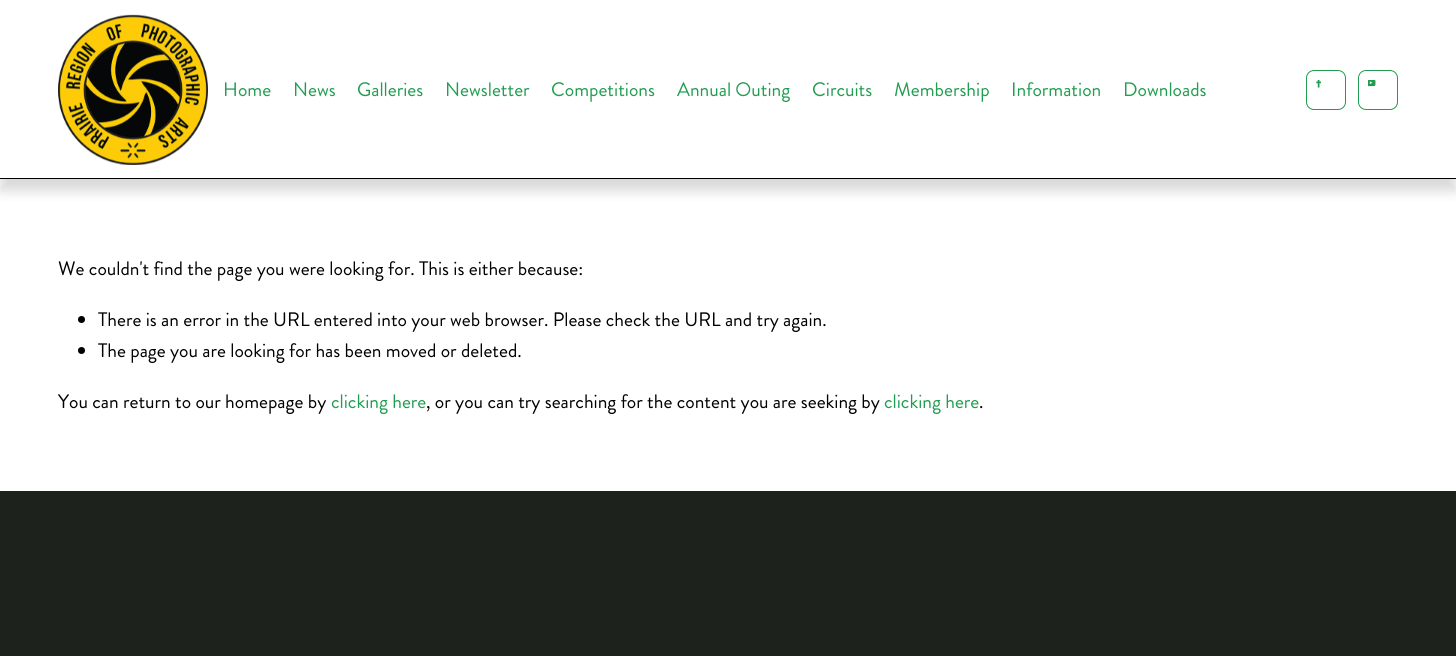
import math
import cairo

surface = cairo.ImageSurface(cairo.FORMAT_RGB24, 1456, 656)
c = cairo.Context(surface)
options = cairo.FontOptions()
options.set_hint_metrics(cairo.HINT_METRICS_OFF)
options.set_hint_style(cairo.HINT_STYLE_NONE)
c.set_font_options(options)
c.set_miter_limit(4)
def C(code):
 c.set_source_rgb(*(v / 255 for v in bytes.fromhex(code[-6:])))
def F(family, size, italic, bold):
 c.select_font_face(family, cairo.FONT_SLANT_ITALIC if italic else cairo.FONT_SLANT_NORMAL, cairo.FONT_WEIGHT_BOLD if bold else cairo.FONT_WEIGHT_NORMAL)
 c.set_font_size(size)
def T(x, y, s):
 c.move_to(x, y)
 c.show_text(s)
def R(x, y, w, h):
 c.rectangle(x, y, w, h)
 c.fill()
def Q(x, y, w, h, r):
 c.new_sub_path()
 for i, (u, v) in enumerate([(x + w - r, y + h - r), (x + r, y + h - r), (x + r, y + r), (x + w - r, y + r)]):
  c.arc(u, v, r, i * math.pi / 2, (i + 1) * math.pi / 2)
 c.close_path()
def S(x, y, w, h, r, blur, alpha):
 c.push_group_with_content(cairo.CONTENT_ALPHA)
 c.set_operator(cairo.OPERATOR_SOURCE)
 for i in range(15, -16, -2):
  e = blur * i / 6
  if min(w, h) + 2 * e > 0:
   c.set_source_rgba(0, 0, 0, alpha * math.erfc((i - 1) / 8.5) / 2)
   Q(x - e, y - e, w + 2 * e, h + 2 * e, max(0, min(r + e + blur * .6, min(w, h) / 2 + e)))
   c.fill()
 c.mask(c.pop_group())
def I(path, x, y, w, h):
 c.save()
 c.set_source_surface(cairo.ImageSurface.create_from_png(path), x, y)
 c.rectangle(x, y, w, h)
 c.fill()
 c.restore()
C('ffffff')
c.paint()
c.save()
c.rectangle(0,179,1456,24)
c.clip()
C('d9d9d9')
S(0,12,1456,179,0,6,1)
c.restore()
I('1.png',58,14,150,151)
F('Brandon Grotesque',19.5,0,0)
C('209d50')
T(223,96,'Home')
T(293,96,'News')
T(357,96,'Galleries')
T(445,96,'Newsletter')
T(551,96,'Competitions')
T(677,96,'Annual Outing')
T(812,96,'Circuits')
T(894,96,'Membership')
T(1011,96,'Information')
T(1123,96,'Downloads')
Q(1306.5,70.5,39,39,7.5)
c.set_line_width(1)
c.stroke()
I('2.png',1316,80,6,8)
Q(1358.5,70.5,39,39,7.5)
c.stroke()
I('3.png',1368,80,8,7)
C('000000')
R(0,178,1456,1)
T(58,275,'We couldn\'t find the page you were looking for. This is either because:')
c.new_path()
c.arc(81.5,319.5,3.5,0,2 * math.pi)
c.fill()
T(98,326,'There is an error in the URL entered into your web browser. Please check the URL and try again.')
c.new_path()
c.arc(81.5,350.5,3.5,0,2 * math.pi)
c.fill()
T(98,357,'The page you are looking for has been moved or deleted.')
T(58,408,'You can return to our homepage by')
C('209d50')
T(331,408,'clicking here')
C('000000')
T(426,408,', or you can try searching for the content you are seeking by')
C('209d50')
T(884,408,'clicking here')
C('000000')
T(979,408,'.')
C('1d231c')
R(0,491,1456,165)
surface.write_to_png('o.png')
